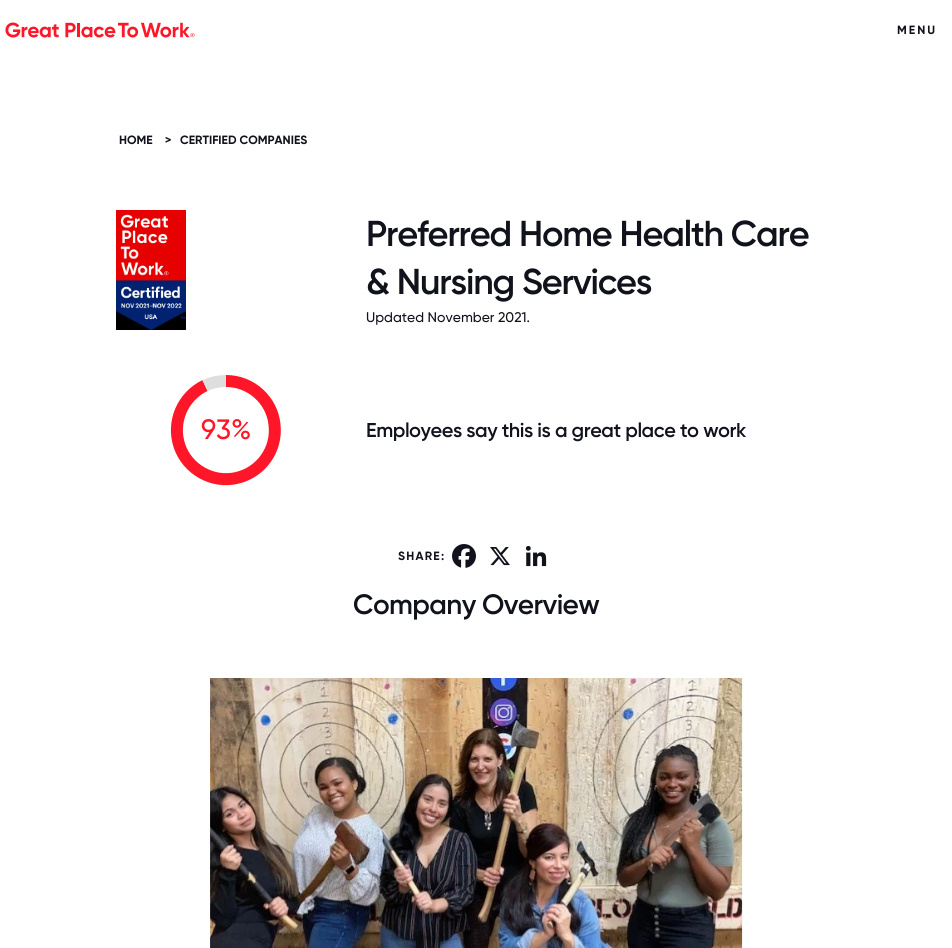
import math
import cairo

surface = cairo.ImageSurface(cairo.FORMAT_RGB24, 952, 948)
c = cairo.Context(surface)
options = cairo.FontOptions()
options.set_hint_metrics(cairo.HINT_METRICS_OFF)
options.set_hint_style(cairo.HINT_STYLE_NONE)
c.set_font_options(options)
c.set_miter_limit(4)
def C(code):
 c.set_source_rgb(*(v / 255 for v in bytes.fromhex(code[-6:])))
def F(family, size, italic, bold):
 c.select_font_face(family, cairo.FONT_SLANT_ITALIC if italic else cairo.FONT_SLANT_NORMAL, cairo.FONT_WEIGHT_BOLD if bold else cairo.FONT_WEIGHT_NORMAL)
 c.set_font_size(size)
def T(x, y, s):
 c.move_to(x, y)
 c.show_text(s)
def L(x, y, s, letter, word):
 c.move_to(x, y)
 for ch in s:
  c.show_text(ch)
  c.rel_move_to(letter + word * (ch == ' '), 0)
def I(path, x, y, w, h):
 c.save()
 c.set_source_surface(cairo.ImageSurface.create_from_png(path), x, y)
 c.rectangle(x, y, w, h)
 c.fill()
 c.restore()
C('ffffff')
c.paint()
I('1.png',5,22,190,16)
F('Gilroy',12,0,1)
C('11131c')
L(897,34,'MENU',2,0)
T(119,144,'HOME')
T(165,144,'>')
T(180,144,'CERTIFIED COMPANIES')
I('2.png',116,210,70,120)
F('Gilroy SemiBold',36,0,0)
L(366,246,'Preferred Home Health Care',-1.15,0)
L(366,294,'& Nursing Services',-1.15,0)
F('Gilroy Medium',14,0,0)
T(366,322,'Updated November 2021.')
c.new_path()
c.move_to(205,385.5)
c.curve_to(182.5,396.5,171.5,422,179.5,446)
c.curve_to(187.5,469.5,212.5,483.5,236.5,478)
c.curve_to(261,472.5,277.5,449.5,274.5,424.5)
c.curve_to(272,400,251,381,226,381)
C('ff1628')
c.set_line_width(12)
c.stroke()
c.new_path()
c.move_to(226,381)
c.curve_to(218.5,381,211.5,382.5,205,385.5)
C('dedede')
c.stroke()
F('Gilroy Medium',28,0,0)
C('ff1628')
T(201,439,'93%')
F('Gilroy SemiBold',20,0,0)
C('11131c')
L(366,437,'Employees say this is a great place to work',-.45,0)
F('Gilroy',12,0,1)
L(398,560,'SHARE:',1.25,0)
I('3.png',452,544,24,24)
I('4.png',490,547,20,19)
I('5.png',525,545,22,22)
F('Gilroy SemiBold',28,0,0)
L(353,614,'Company Overview',-.6,0)
I('6.png',210,678,533,270)
surface.write_to_png('o.png')
